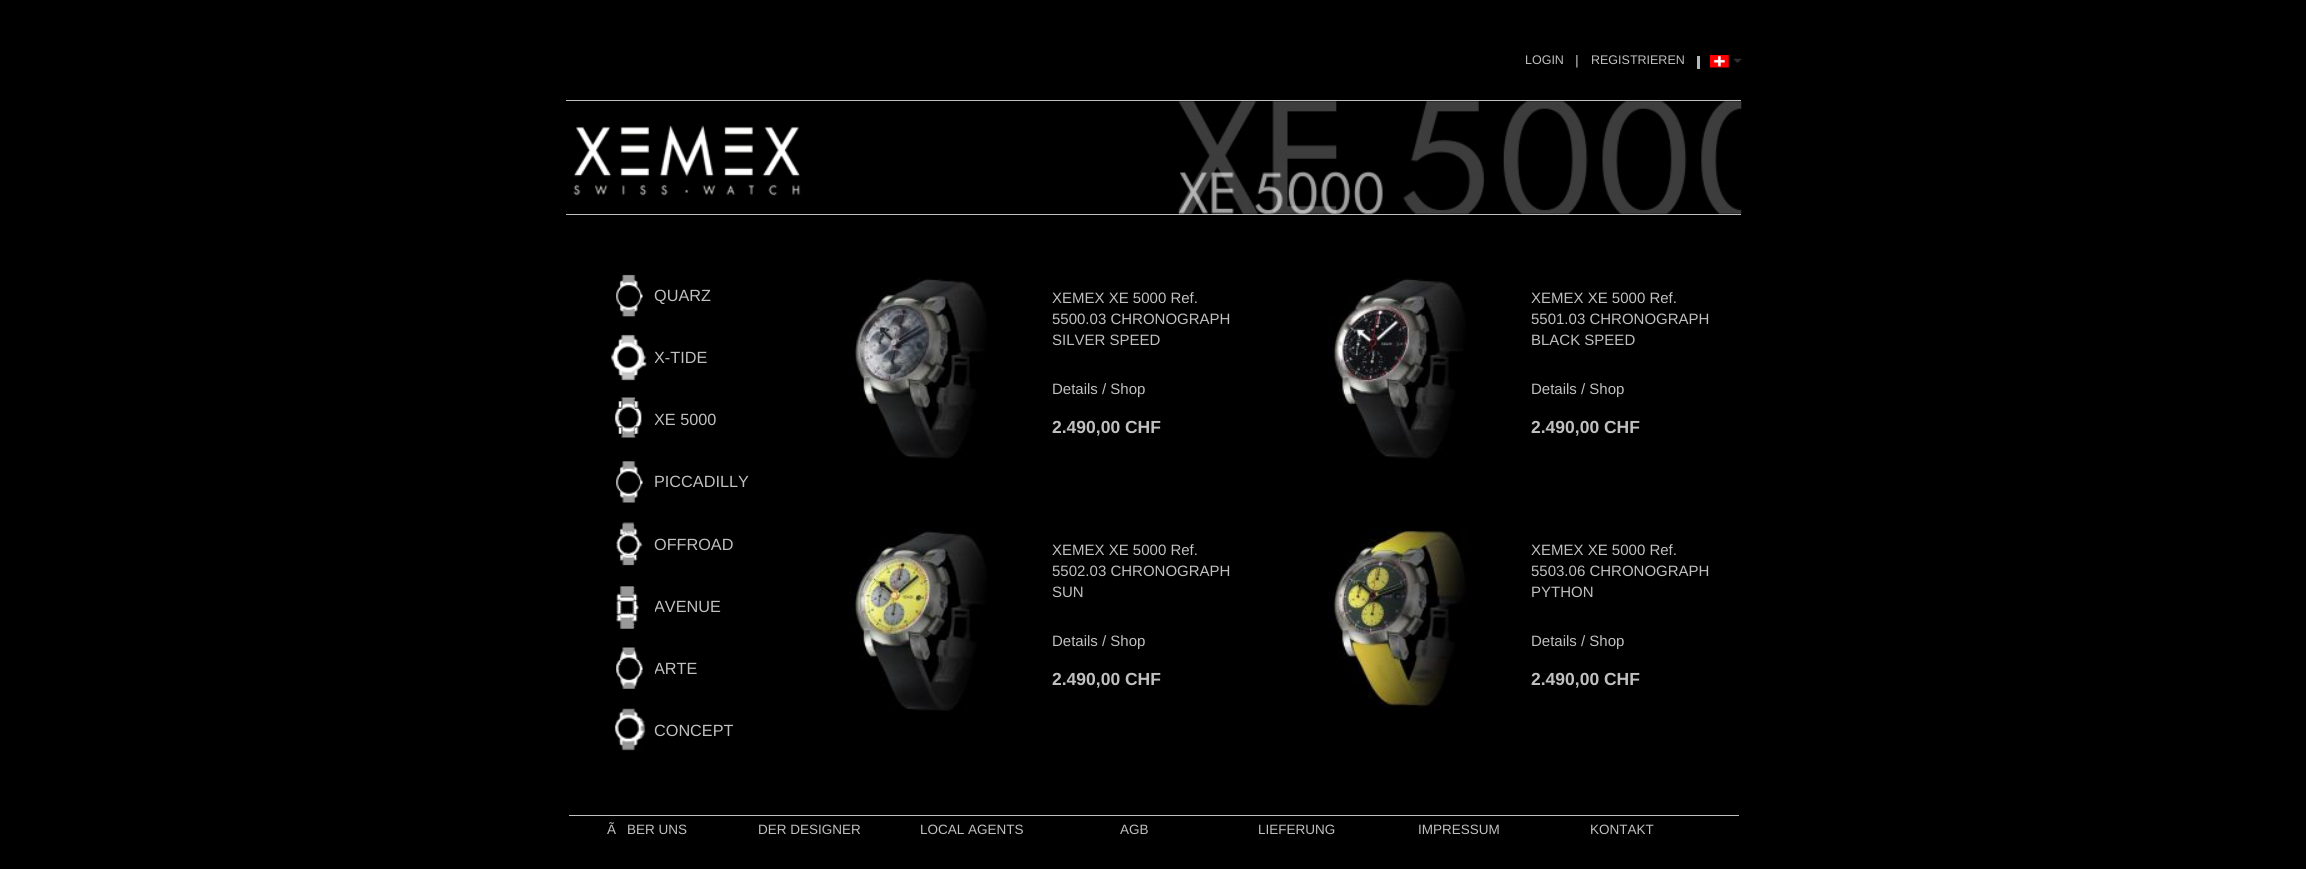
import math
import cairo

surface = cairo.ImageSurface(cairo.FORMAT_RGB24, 2306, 869)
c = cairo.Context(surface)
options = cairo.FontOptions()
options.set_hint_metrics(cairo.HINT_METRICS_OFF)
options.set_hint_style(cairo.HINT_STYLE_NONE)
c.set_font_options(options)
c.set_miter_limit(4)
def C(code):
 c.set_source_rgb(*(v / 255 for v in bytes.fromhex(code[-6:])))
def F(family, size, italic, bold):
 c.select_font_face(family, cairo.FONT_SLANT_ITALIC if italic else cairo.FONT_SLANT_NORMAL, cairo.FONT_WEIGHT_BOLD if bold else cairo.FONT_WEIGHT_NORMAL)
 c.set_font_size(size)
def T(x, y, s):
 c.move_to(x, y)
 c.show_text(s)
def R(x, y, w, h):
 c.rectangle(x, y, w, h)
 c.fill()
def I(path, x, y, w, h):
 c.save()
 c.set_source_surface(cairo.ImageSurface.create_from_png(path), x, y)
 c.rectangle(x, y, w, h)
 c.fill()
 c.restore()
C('000000')
c.paint()
I('1.png',1576,55,2,13)
F('Liberation Sans',12.5,0,0)
C('c0c0c0')
T(1525,64,'LOGIN')
T(1591,64,'REGISTRIEREN')
C('b4b8b8')
R(1697,56,3,13)
I('2.png',1733,58,9,5)
I('3.png',1710,55,19,13)
C('c0c0c0')
R(566,100,1175,1)
R(566,214,1175,1)
I('4.png',573,125,228,71)
I('5.png',1178,101,564,113)
I('6.png',616,274,27,43)
F('Liberation Sans',16.25,0,0)
T(654,301,'QUARZ')
T(654,363,'X-TIDE')
I('7.png',611,334,44,47)
T(654,425,'XE 5000')
I('8.png',614,397,41,41)
I('9.png',616,461,27,42)
T(654,487,'PICCADILLY')
I('10.png',616,522,27,44)
T(654,550,'OFFROAD')
T(654,612,'AVENUE')
I('11.png',616,586,39,43)
T(654,674,'ARTE')
I('12.png',616,647,39,42)
I('13.png',614,708,32,43)
T(654,736,'CONCEPT')
I('14.png',849,278,138,181)
F('Liberation Sans',15,0,0)
T(1052,303,'XEMEX XE 5000 Ref.')
T(1052,324,'5500.03 CHRONOGRAPH')
T(1052,345,'SILVER SPEED')
T(1052,394,'Details / Shop')
F('Liberation Sans',17.5,0,1)
T(1052,433,'2.490,00 CHF')
I('15.png',1328,278,138,181)
F('Liberation Sans',15,0,0)
T(1531,303,'XEMEX XE 5000 Ref.')
T(1531,324,'5501.03 CHRONOGRAPH')
T(1531,345,'BLACK SPEED')
T(1531,394,'Details / Shop')
F('Liberation Sans',17.5,0,1)
T(1531,433,'2.490,00 CHF')
I('16.png',849,529,138,182)
F('Liberation Sans',15,0,0)
T(1052,555,'XEMEX XE 5000 Ref.')
T(1052,576,'5502.03 CHRONOGRAPH')
T(1052,597,'SUN')
T(1052,646,'Details / Shop')
F('Liberation Sans',17.5,0,1)
T(1052,685,'2.490,00 CHF')
I('17.png',1328,529,139,180)
F('Liberation Sans',15,0,0)
T(1531,555,'XEMEX XE 5000 Ref.')
T(1531,576,'5503.06 CHRONOGRAPH')
T(1531,597,'PYTHON')
T(1531,646,'Details / Shop')
F('Liberation Sans',17.5,0,1)
T(1531,685,'2.490,00 CHF')
R(569,815,1170,1)
F('Liberation Sans',13.5,0,0)
T(607,834,'Ã')
T(627,834,'BER UNS')
T(758,834,'DER DESIGNER')
T(920,834,'LOCAL AGENTS')
T(1120,834,'AGB')
T(1258,834,'LIEFERUNG')
T(1418,834,'IMPRESSUM')
T(1590,834,'KONTAKT')
surface.write_to_png('o.png')
